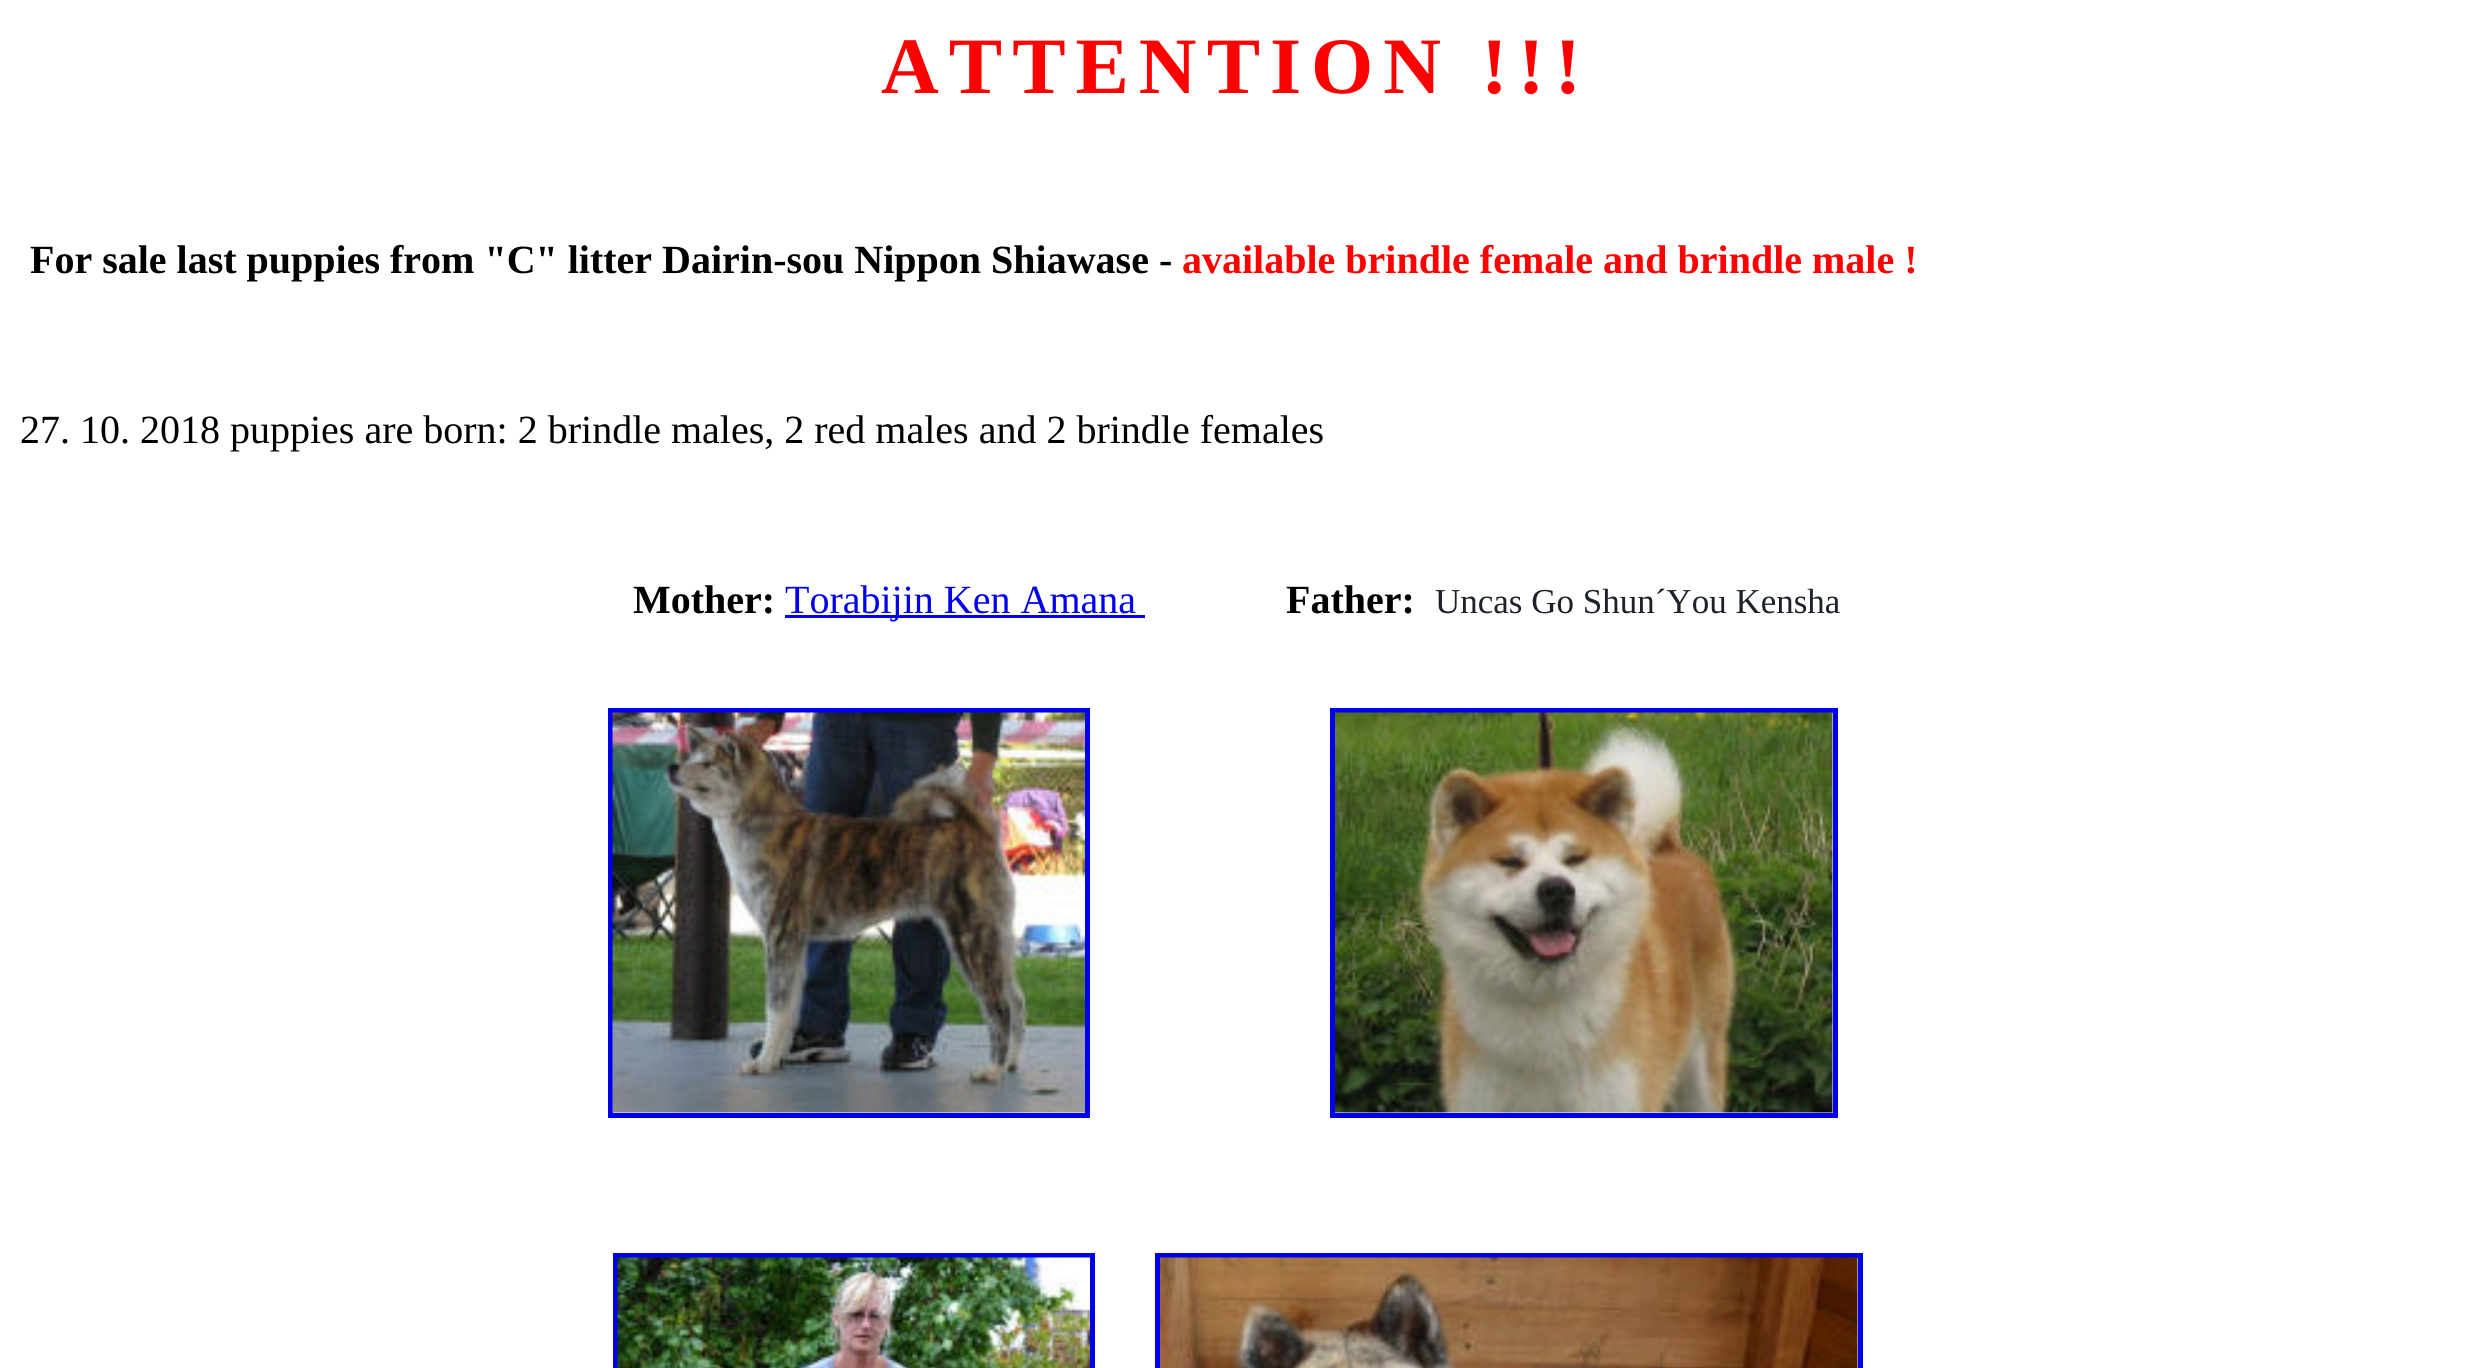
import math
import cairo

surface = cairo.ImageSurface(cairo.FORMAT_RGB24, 2471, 1368)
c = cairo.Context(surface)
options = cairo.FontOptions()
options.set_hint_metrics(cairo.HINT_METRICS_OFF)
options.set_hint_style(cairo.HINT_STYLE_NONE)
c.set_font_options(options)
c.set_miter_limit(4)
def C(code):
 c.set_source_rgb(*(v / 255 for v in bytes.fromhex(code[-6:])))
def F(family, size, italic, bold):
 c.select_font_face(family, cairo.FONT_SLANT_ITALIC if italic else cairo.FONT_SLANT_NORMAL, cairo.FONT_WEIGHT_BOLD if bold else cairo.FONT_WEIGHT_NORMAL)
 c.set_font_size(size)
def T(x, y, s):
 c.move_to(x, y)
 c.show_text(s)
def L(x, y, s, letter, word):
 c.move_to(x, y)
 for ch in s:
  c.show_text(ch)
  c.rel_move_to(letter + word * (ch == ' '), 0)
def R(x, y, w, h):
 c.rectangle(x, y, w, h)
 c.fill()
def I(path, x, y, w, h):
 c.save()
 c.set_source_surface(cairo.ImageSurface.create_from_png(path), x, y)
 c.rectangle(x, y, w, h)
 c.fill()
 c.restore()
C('ffffff')
c.paint()
F('Liberation Serif',80,0,1)
C('ff0000')
L(881,93,'ATTENTION !!!',10,0)
F('Liberation Serif',40,0,1)
C('000000')
T(30,273,'For sale last puppies from "C" litter Dairin-sou Nippon Shiawase -')
C('ff0000')
T(1182,273,'available brindle female and brindle male !')
F('Liberation Serif',40,0,0)
C('000000')
T(20,443,'27. 10. 2018 puppies are born: 2 brindle males, 2 red males and 2 brindle females')
F('Liberation Serif',40,0,1)
T(633,613,'Mother:')
C('0000ee')
R(785,615,350,3)
F('Liberation Serif',40,0,0)
T(785,613,'Torabijin Ken Amana')
R(1135,615,10,3)
F('Liberation Serif',40,0,1)
C('000000')
T(1286,613,'Father:')
F('Liberation Serif',35,0,0)
C('1d2129')
T(1435,613,'Uncas Go Shun´You Kensha')
c.rectangle(610.5,710.5,477,405)
C('0000ee')
c.set_line_width(5)
c.stroke()
c.rectangle(1332.5,710.5,503,405)
c.stroke()
I('1.png',612,712,473,401)
I('2.png',1335,712,498,401)
c.rectangle(615.5,1255.5,477,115)
c.stroke()
c.rectangle(1157.5,1255.5,703,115)
c.stroke()
I('3.png',617,1257,473,111)
I('4.png',1160,1257,698,111)
surface.write_to_png('o.png')
